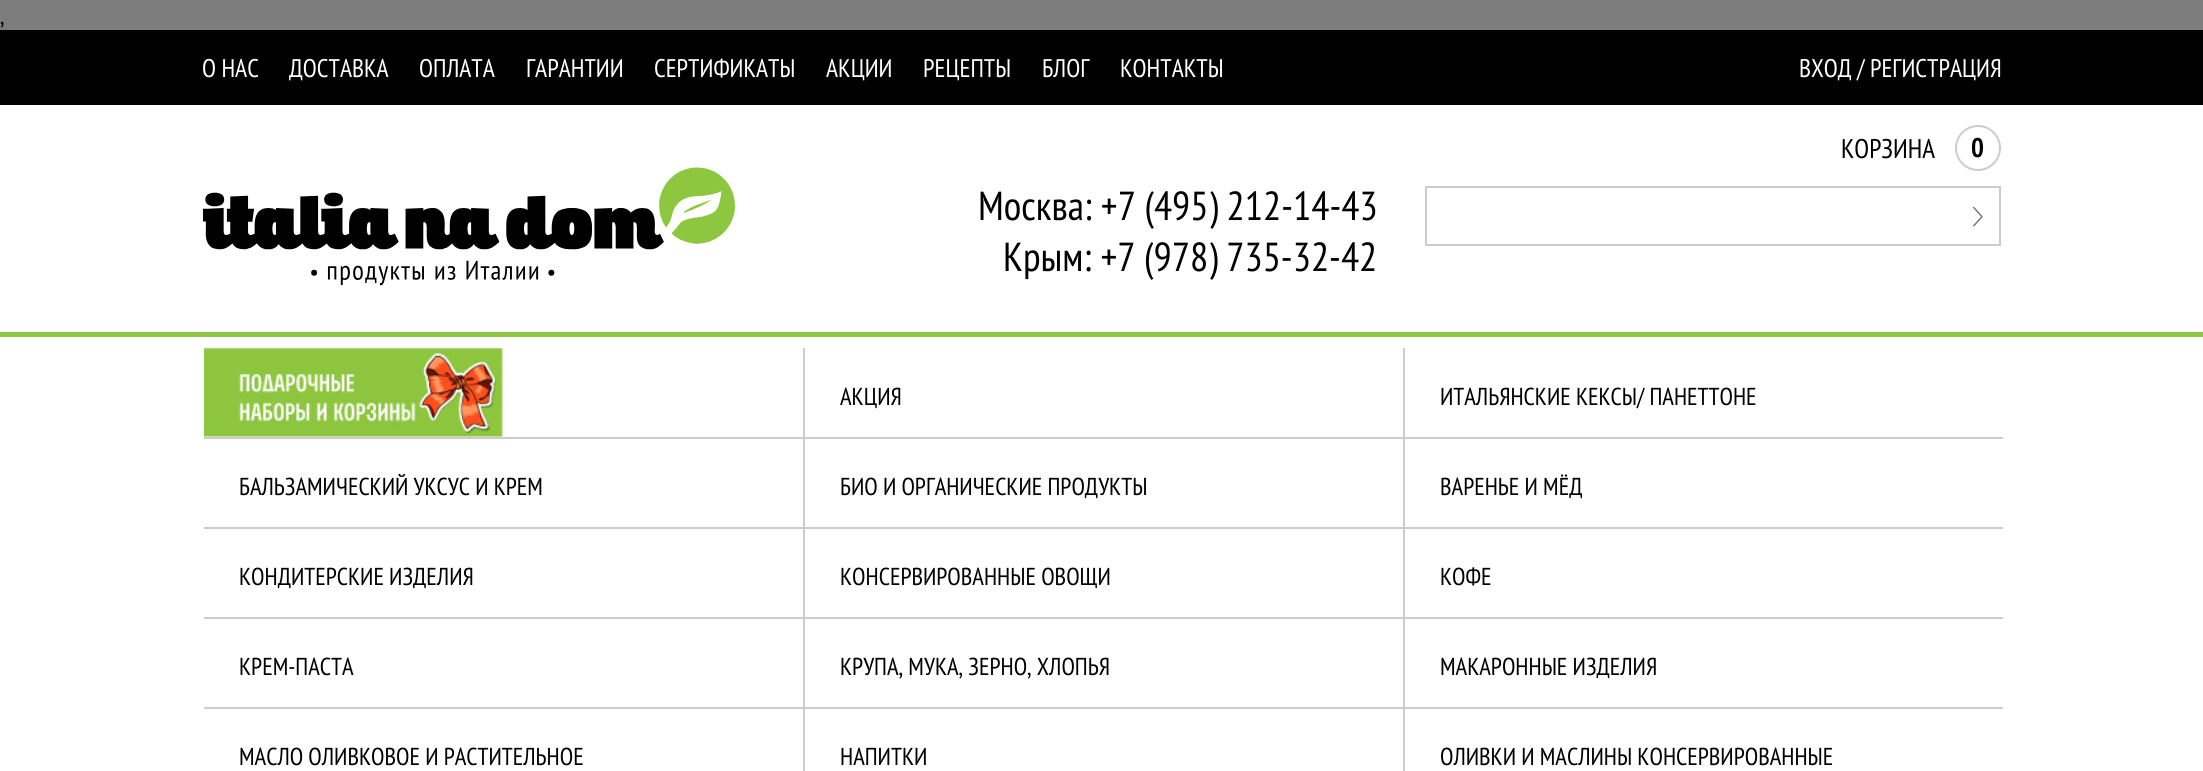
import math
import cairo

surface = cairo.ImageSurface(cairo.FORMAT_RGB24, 2203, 771)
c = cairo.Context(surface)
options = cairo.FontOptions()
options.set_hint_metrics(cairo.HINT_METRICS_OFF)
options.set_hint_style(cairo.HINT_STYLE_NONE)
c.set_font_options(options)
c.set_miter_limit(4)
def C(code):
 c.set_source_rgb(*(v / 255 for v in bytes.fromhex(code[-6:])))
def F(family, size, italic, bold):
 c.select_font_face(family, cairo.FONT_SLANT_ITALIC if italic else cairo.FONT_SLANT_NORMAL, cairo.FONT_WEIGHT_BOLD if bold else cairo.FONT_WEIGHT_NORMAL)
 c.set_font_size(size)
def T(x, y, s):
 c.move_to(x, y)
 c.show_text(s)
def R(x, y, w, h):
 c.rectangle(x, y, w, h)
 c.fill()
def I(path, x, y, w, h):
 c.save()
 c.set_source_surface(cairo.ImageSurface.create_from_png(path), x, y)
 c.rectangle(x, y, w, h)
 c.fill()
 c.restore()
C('7d7d7d')
c.paint()
F('PT Sans Narrow',24,0,0)
C('000000')
T(0,24,',')
C('ffffff')
R(0,105,2203,666)
C('000000')
R(0,30,2203,75)
F('PT Sans Narrow',25.5,0,0)
C('ffffff')
T(202,77,'О НАС')
T(289,77,'ДОСТАВКА')
T(419,77,'ОПЛАТА')
T(526,77,'ГАРАНТИИ')
T(654,77,'СЕРТИФИКАТЫ')
T(826,77,'АКЦИИ')
T(923,77,'РЕЦЕПТЫ')
T(1042,77,'БЛОГ')
T(1120,77,'КОНТАКТЫ')
T(1799,77,'ВХОД / РЕГИСТРАЦИЯ')
F('PT Sans Narrow',27,0,0)
C('000000')
T(1841,158,'КОРЗИНА')
c.new_path()
c.arc(1978,148,22,0,2 * math.pi)
C('cccccc')
c.stroke()
F('PT Sans Narrow',27,0,1)
C('000000')
T(1971,157,'0')
c.rectangle(1426,187,574,58)
C('cccccc')
c.stroke()
I('1.png',1972,207,11,20)
I('2.png',203,167,532,119)
F('PT Sans Narrow',40.5,0,0)
C('000000')
T(978,220,'Москва: +7 (495) 212-14-43')
T(1003,271,'Крым: +7 (978) 735-32-42')
C('8dc63f')
R(0,332,2203,5)
C('cccccc')
R(803,348,2,90)
R(204,437,600,2)
I('3.png',204,348,299,89)
R(1403,348,2,90)
R(804,437,1199,2)
F('PT Sans Narrow',24.5,0,0)
C('000000')
T(840,405,'АКЦИЯ')
T(1440,405,'ИТАЛЬЯНСКИЕ КЕКСЫ/ ПАНЕТТОНЕ')
C('cccccc')
R(803,438,2,90)
R(204,527,600,2)
C('000000')
T(239,495,'БАЛЬЗАМИЧЕСКИЙ УКСУС И КРЕМ')
C('cccccc')
R(1403,438,2,90)
R(804,527,1199,2)
C('000000')
T(840,495,'БИО И ОРГАНИЧЕСКИЕ ПРОДУКТЫ')
T(1440,495,'ВАРЕНЬЕ И МЁД')
C('cccccc')
R(803,528,2,90)
R(204,617,600,2)
C('000000')
T(239,585,'КОНДИТЕРСКИЕ ИЗДЕЛИЯ')
C('cccccc')
R(1403,528,2,90)
R(804,617,1199,2)
C('000000')
T(840,585,'КОНСЕРВИРОВАННЫЕ ОВОЩИ')
T(1440,585,'КОФЕ')
C('cccccc')
R(803,618,2,90)
R(204,707,600,2)
C('000000')
T(239,675,'КРЕМ-ПАСТА')
C('cccccc')
R(1403,618,2,90)
R(804,707,1199,2)
C('000000')
T(840,675,'КРУПА, МУКА, ЗЕРНО, ХЛОПЬЯ')
T(1440,675,'МАКАРОННЫЕ ИЗДЕЛИЯ')
C('cccccc')
R(803,708,2,63)
C('000000')
T(239,765,'МАСЛО ОЛИВКОВОЕ И РАСТИТЕЛЬНОЕ')
C('cccccc')
R(1403,708,2,63)
C('000000')
T(840,765,'НАПИТКИ')
T(1440,765,'ОЛИВКИ И МАСЛИНЫ КОНСЕРВИРОВАННЫЕ')
surface.write_to_png('o.png')
